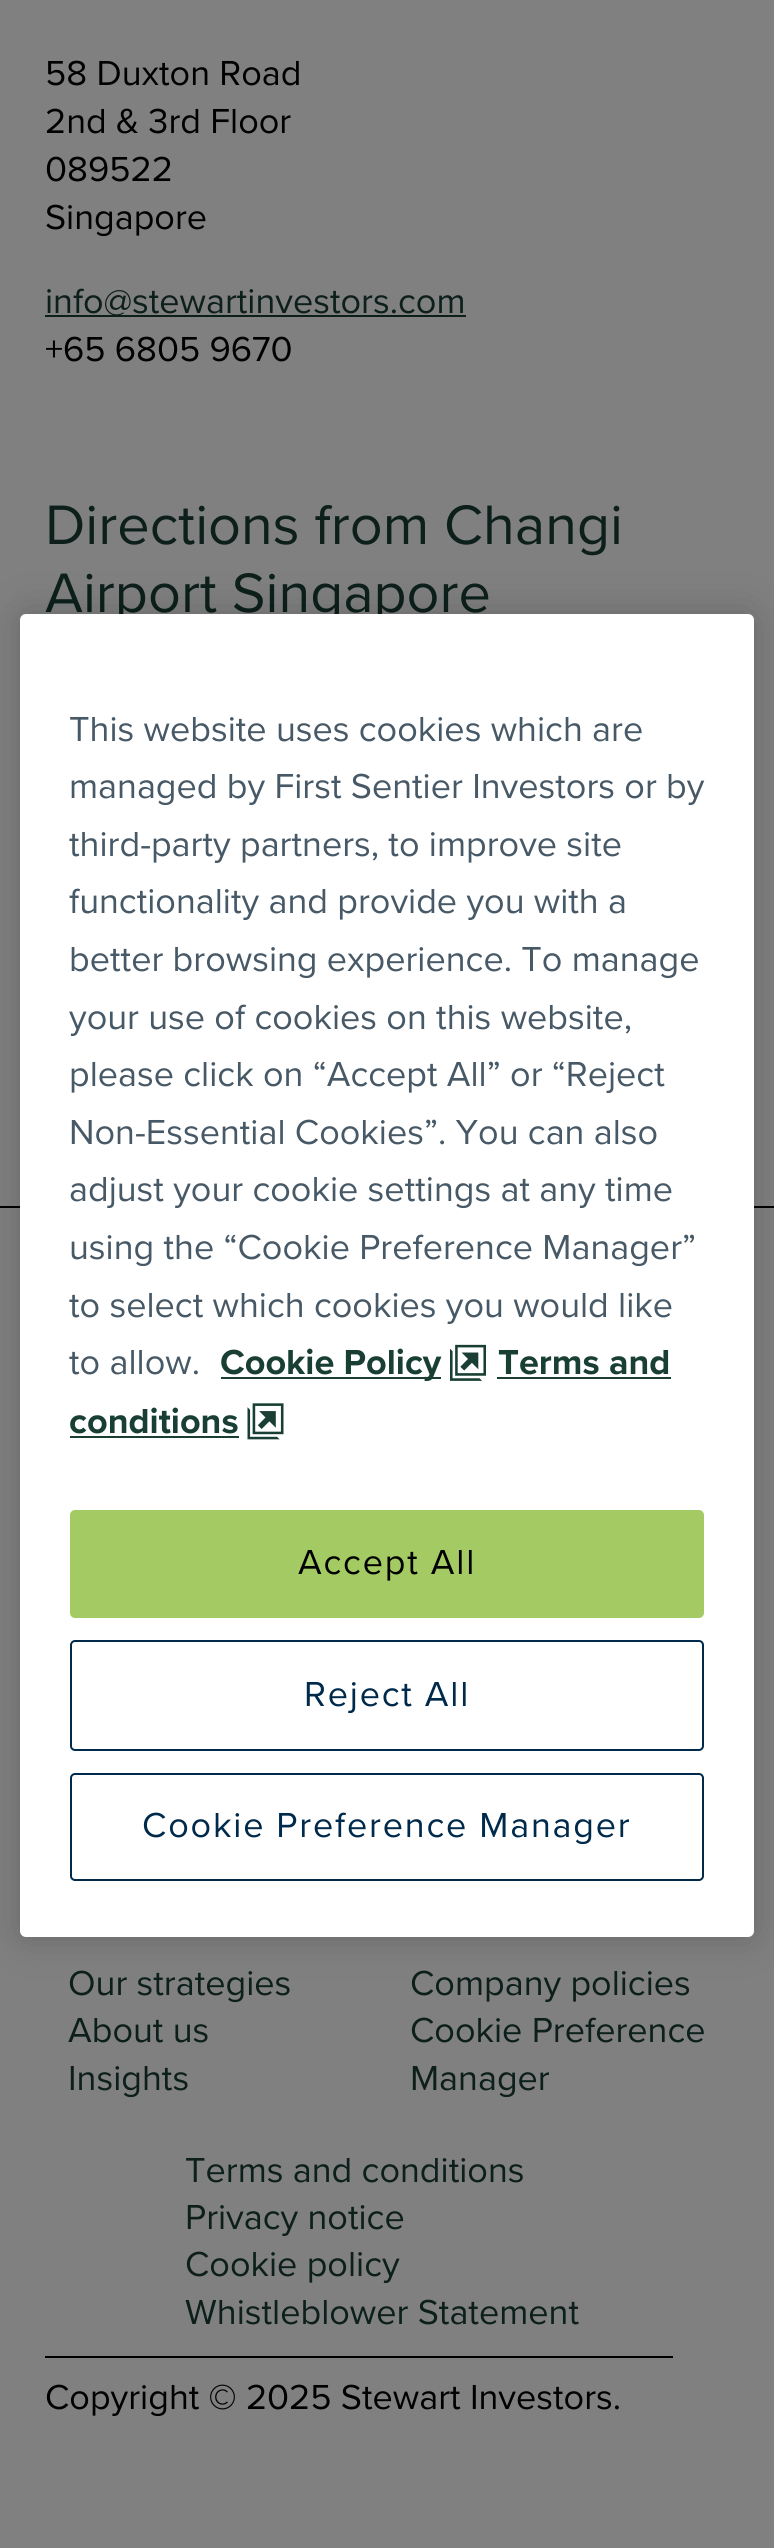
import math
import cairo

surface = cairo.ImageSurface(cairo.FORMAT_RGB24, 774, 2548)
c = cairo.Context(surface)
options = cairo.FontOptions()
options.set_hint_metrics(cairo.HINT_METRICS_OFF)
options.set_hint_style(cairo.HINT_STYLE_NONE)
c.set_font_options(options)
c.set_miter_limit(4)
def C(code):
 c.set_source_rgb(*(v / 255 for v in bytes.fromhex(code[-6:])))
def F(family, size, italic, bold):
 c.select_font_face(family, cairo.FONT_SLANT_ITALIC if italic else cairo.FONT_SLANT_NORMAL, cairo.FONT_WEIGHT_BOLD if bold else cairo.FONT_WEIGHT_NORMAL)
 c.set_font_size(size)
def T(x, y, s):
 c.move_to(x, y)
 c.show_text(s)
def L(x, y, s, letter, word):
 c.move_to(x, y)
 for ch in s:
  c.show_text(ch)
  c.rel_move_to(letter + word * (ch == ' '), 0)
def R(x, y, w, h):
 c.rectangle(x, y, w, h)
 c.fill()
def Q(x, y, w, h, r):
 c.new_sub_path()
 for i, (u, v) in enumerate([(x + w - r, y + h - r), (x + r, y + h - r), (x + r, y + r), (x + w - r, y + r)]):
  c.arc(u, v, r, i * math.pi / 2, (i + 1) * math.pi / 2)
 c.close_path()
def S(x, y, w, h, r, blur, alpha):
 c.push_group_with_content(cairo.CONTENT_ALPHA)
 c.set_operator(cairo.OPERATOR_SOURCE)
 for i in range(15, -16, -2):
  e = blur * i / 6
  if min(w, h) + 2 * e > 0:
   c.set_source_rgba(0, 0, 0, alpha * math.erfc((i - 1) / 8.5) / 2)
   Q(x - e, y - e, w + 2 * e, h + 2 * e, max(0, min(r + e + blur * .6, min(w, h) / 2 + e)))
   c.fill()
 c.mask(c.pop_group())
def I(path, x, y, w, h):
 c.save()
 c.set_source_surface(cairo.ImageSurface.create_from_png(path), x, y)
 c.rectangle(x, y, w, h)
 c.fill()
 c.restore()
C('808080')
c.paint()
F('Proxima Nova',36,0,0)
C('000000')
T(45,85,'58 Duxton Road')
T(45,133,'2nd & 3rd Floor')
T(45,181,'089522')
T(45,229,'Singapore')
C('0c1f1b')
R(45,315,421,2)
T(45,313,'info@stewartinvestors.com')
C('000000')
T(45,361,'+65 6805 9670')
F('Proxima Nova',57.6,0,0)
C('0c1f1b')
T(45,544,'Directions from Changi')
T(45,612,'Airport Singapore')
C('000000')
R(0,1206,774,2)
F('Proxima Nova',36,0,0)
C('0c1f1b')
T(68,1995,'Our strategies')
T(68,2042,'About us')
T(68,2090,'Insights')
T(410,1995,'Company policies')
T(410,2042,'Cookie Preference')
T(410,2090,'Manager')
T(185,2182,'Terms and conditions')
T(185,2229,'Privacy notice')
T(185,2276,'Cookie policy')
T(185,2324,'Whistleblower Statement')
C('000000')
R(45,2356,628,2)
T(45,2409,'Copyright © 2025 Stewart Investors.')
C('000000')
S(20,614,734,1323,6,20,.2)
C('ffffff')
Q(20,614,734,1323,6)
c.fill()
C('475966')
T(69,741,'This website uses cookies which are')
T(69,798,'managed by First Sentier Investors or by')
T(69,856,'third-party partners, to improve site')
T(69,913,'functionality and provide you with a')
T(69,971,'better browsing experience. To manage')
T(69,1029,'your use of cookies on this website,')
T(69,1086,'please click on “Accept All” or “Reject')
T(69,1144,'Non-Essential Cookies”. You can also')
T(69,1201,'adjust your cookie settings at any time')
T(69,1259,'using the “Cookie Preference Manager”')
T(69,1317,'to select which cookies you would like')
T(69,1374,'to allow.')
C('193f35')
R(221,1377,220,2)
F('Proxima Nova',36,0,1)
T(220,1374,'Cookie Policy')
I('1.png',450,1344,36,37)
T(498,1374,'Terms and')
R(497,1377,174,2)
T(69,1433,'conditions')
R(70,1436,169,2)
I('2.png',247,1403,37,37)
C('a3ca63')
Q(71,1511,632,106,4)
c.fill_preserve()
c.stroke()
F('Proxima Nova',36,0,0)
C('000000')
L(298,1574,'Accept All',1.8,0)
Q(71,1641,632,109,4)
C('002a4b')
c.stroke()
L(304,1706,'Reject All',1.8,0)
Q(71,1774,632,106,4)
c.stroke()
L(142,1837,'Cookie Preference Manager',1.8,0)
surface.write_to_png('o.png')
